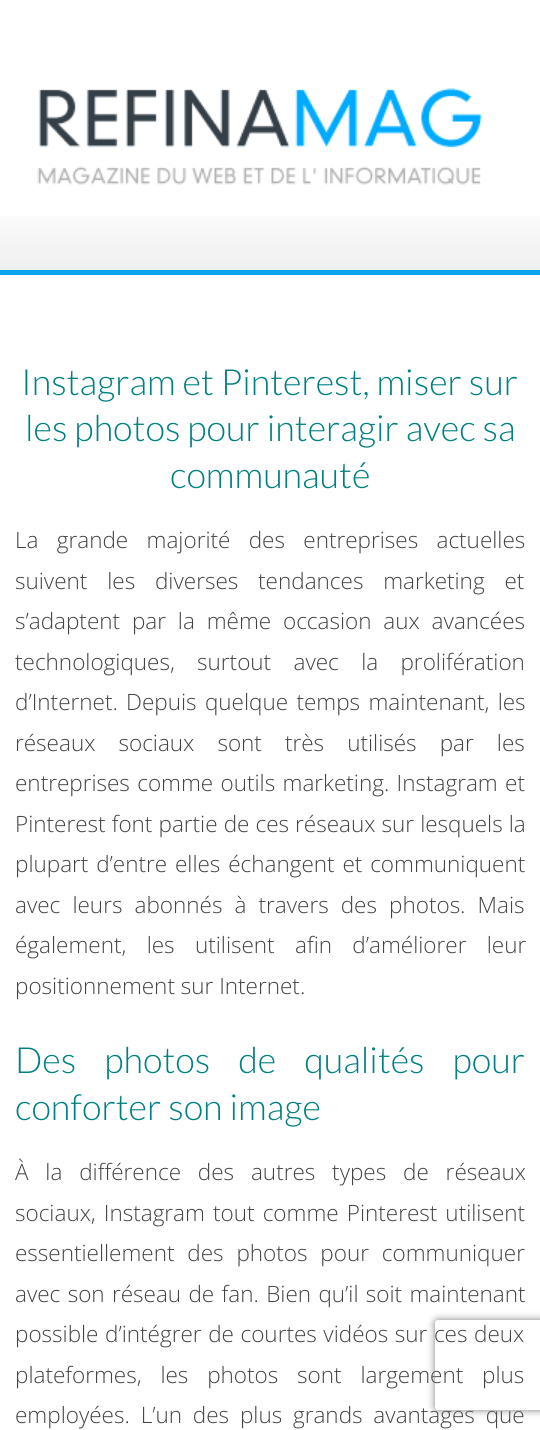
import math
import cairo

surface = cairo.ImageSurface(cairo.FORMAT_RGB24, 540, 1430)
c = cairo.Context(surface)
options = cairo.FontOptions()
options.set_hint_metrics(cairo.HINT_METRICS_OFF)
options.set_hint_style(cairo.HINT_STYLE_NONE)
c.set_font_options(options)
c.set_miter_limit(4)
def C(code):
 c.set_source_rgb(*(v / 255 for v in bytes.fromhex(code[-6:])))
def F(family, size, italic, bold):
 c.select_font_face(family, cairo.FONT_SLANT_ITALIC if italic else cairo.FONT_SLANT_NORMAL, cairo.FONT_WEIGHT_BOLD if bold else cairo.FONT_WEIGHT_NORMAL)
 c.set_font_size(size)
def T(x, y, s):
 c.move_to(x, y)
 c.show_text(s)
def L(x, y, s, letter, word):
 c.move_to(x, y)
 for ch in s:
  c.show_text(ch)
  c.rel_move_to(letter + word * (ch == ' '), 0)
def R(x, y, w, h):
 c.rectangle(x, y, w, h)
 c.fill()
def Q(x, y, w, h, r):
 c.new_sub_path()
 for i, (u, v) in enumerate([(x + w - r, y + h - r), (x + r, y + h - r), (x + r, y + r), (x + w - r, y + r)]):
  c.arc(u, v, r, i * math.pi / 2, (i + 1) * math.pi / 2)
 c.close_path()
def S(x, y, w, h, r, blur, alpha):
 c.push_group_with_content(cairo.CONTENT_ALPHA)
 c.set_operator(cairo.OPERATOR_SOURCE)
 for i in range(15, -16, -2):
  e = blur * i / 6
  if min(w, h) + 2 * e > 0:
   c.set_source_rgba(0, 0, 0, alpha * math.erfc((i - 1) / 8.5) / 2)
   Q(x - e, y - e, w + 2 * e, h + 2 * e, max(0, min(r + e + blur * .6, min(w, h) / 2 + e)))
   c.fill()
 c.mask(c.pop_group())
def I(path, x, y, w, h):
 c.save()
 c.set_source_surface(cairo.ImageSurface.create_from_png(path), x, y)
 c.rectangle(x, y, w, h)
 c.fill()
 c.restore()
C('ffffff')
c.paint()
I('1.png',0,216,540,54)
I('2.png',37,88,445,97)
C('04a3ed')
R(0,270,540,5)
F('Lato Light',36,0,0)
C('008080')
T(21,395,'Instagram et Pinterest, miser sur')
T(25,441,'les photos pour interagir avec sa')
T(170,488,'communauté')
F('Open Sans Light',22.5,0,0)
C('444444')
L(15,548,'La grande majorité des entreprises actuelles',0,12.5)
L(15,589,'suivent les diverses tendances marketing et',0,14)
L(15,629,'s’adaptent par la même occasion aux avancées',0,6)
L(15,670,'technologiques, surtout avec la prolifération',0,16.5)
L(15,710,'d’Internet. Depuis quelque temps maintenant, les',0,2.5)
L(15,751,'réseaux sociaux sont très utilisés par les',0,17.25)
L(15,791,'entreprises comme outils marketing. Instagram et',0,1.5)
L(15,832,'Pinterest font partie de ces réseaux sur lesquels la',0,.25)
L(15,872,'plupart d’entre elles échangent et communiquent',0,2)
L(15,913,'avec leurs abonnés à travers des photos. Mais',0,6.25)
L(15,953,'également, les utilisent afin d’améliorer leur',0,14.5)
T(15,994,'positionnement sur Internet.')
F('Lato Light',36,0,0)
C('008080')
L(15,1073,'Des photos de qualités pour',0,21)
T(15,1120,'conforter son image')
F('Open Sans Light',22.5,0,0)
C('444444')
L(15,1180,'À la différence des autres types de réseaux',0,11)
L(15,1221,'sociaux, Instagram tout comme Pinterest utilisent',0,2.25)
L(15,1261,'essentiellement des photos pour communiquer',0,7)
L(15,1302,'avec son réseau de fan. Bien qu’il soit maintenant',0,1.5)
L(15,1342,'possible d’intégrer de courtes vidéos sur ces deux',0,.75)
L(15,1383,'plateformes, les photos sont largement plus',0,13)
L(15,1423,'employées. L’un des plus grands avantages que',0,5)
c.save()
c.set_fill_rule(cairo.FILL_RULE_EVEN_ODD)
c.new_path()
c.move_to(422,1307)
c.line_to(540,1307)
c.line_to(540,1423)
c.line_to(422,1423)
c.close_path()
c.move_to(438,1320)
c.line_to(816,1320)
c.curve_to(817.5,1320,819,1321.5,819,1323)
c.line_to(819,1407)
c.curve_to(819,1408.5,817.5,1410,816,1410)
c.line_to(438,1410)
c.curve_to(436.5,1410,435,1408.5,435,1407)
c.line_to(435,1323)
c.curve_to(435,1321.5,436.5,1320,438,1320)
c.close_path()
c.clip()
C('808080')
S(435,1320,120,90,3,4,1)
c.restore()
surface.write_to_png('o.png')
